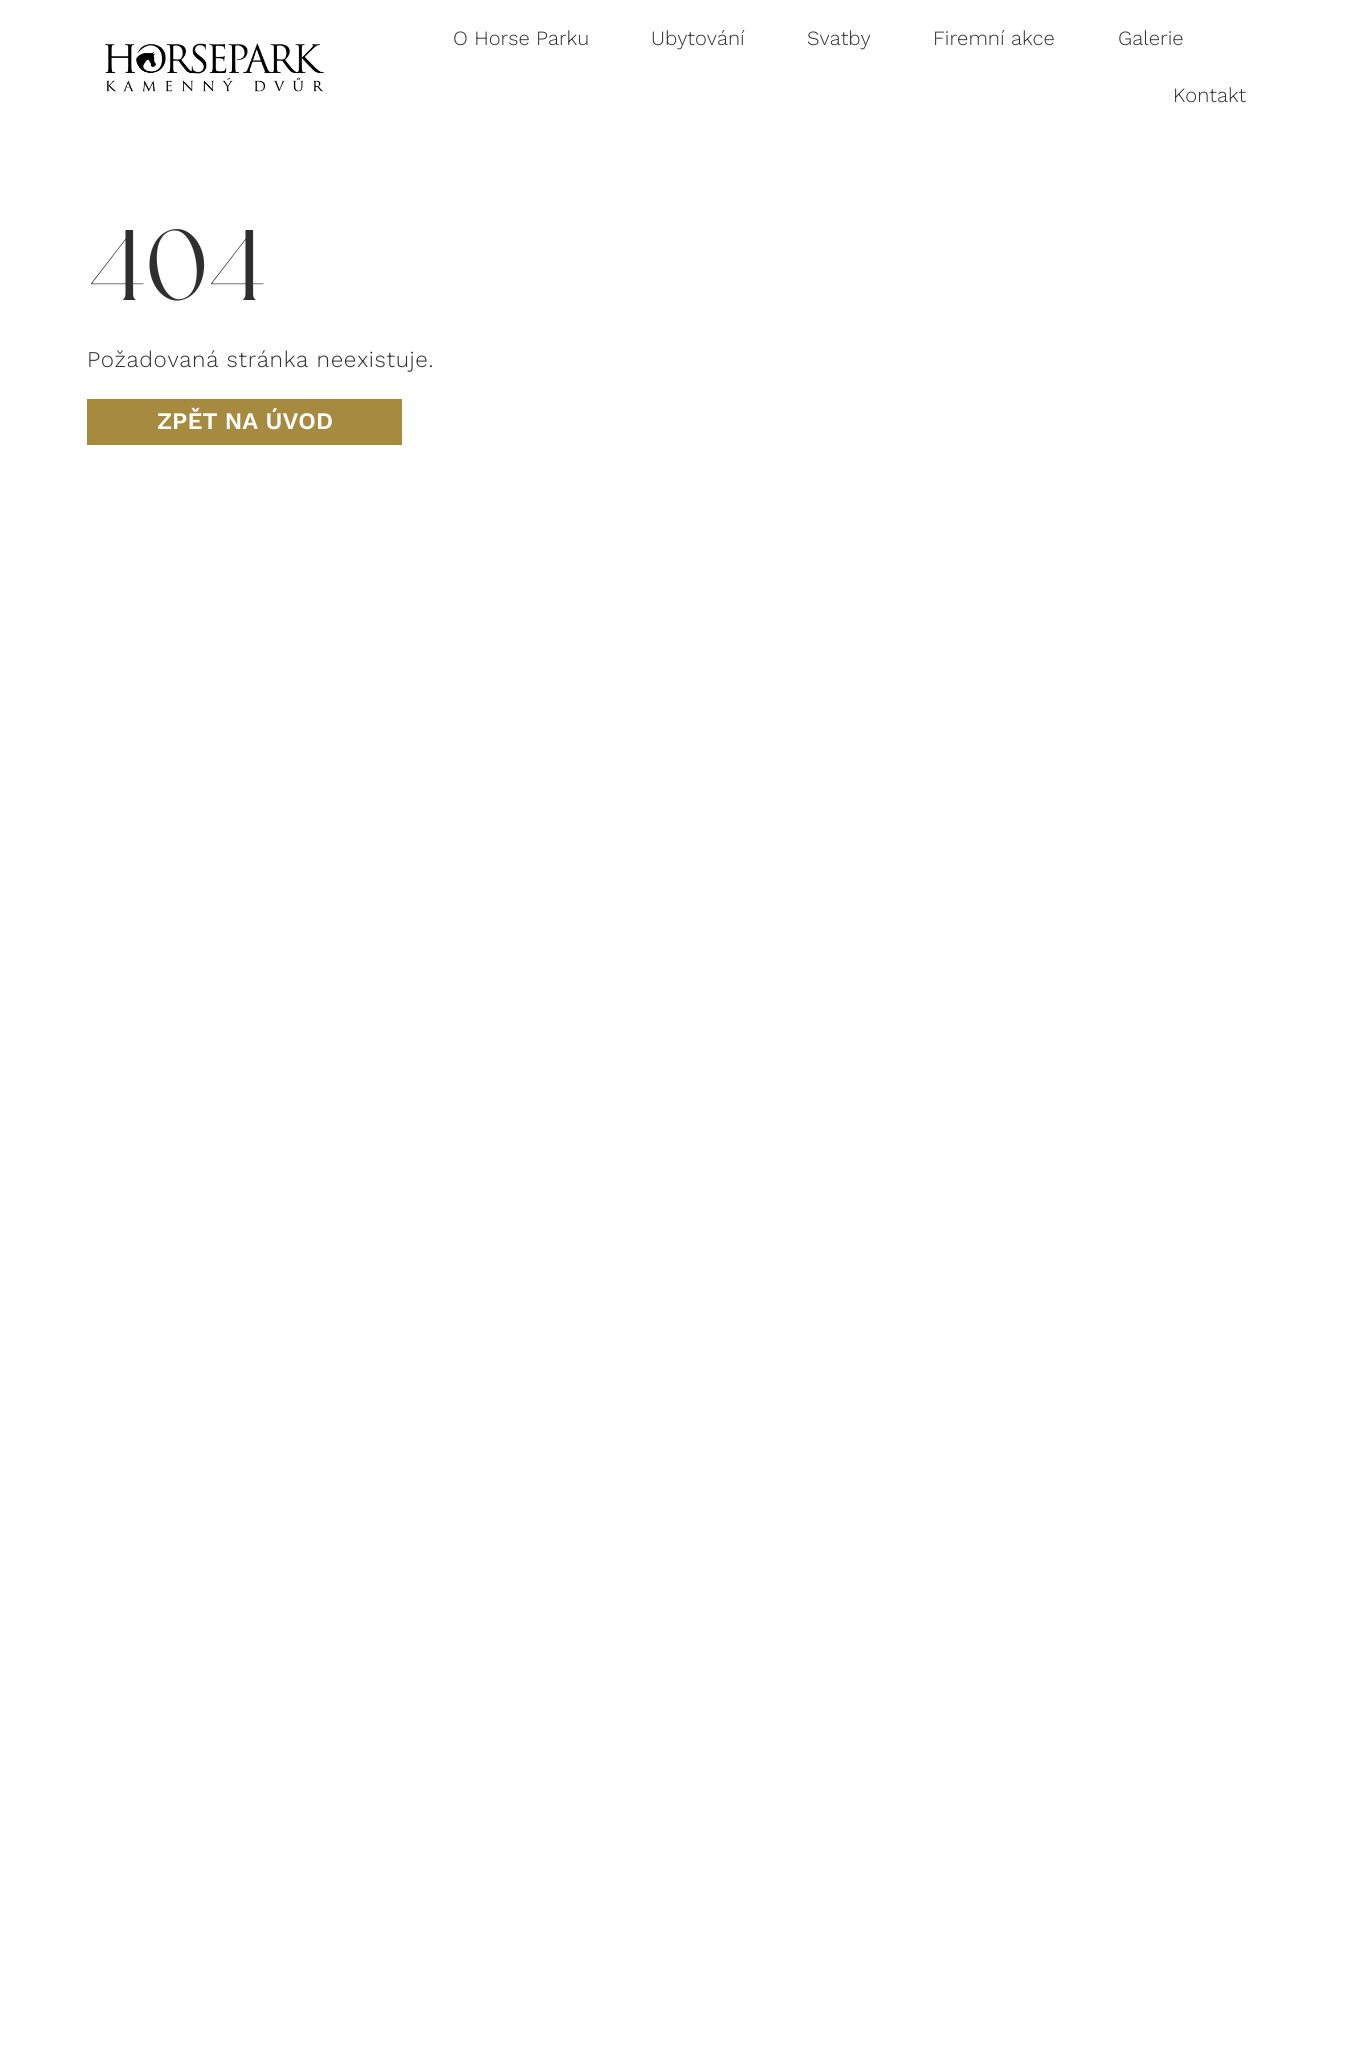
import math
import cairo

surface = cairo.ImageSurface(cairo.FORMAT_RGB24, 1357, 2045)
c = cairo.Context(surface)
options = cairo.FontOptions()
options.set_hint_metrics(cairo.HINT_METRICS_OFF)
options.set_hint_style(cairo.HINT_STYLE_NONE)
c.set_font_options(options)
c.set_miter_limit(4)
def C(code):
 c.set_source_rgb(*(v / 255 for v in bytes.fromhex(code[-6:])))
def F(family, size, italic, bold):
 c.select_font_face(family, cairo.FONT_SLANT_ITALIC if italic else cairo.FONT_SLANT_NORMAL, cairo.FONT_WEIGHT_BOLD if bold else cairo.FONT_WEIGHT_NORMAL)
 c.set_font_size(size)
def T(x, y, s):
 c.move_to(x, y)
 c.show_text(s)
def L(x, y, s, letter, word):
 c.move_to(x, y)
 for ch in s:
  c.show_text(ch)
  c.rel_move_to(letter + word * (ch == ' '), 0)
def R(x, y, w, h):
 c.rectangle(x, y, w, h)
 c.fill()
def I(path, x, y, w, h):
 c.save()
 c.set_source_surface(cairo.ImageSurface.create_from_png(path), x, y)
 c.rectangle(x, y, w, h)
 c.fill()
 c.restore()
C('ffffff')
c.paint()
I('1.png',105,43,219,49)
F('Work Sans Light',20.25,0,0)
C('2f2f2f')
T(453,45,'O Horse Parku')
T(651,45,'Ubytování')
T(807,45,'Svatby')
T(933,45,'Firemní akce')
T(1118,45,'Galerie')
T(1173,102,'Kontakt')
F('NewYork',100,0,0)
T(87,300,'404')
F('Work Sans Light',22.5,0,0)
L(87,367,'Požadovaná stránka neexistuje.',.6,0)
C('a68a40')
R(87,399,315,46)
F('Work Sans SemiBold',23.75,0,0)
C('ffffff')
T(157,429,'ZPĚT NA ÚVOD')
surface.write_to_png('o.png')
